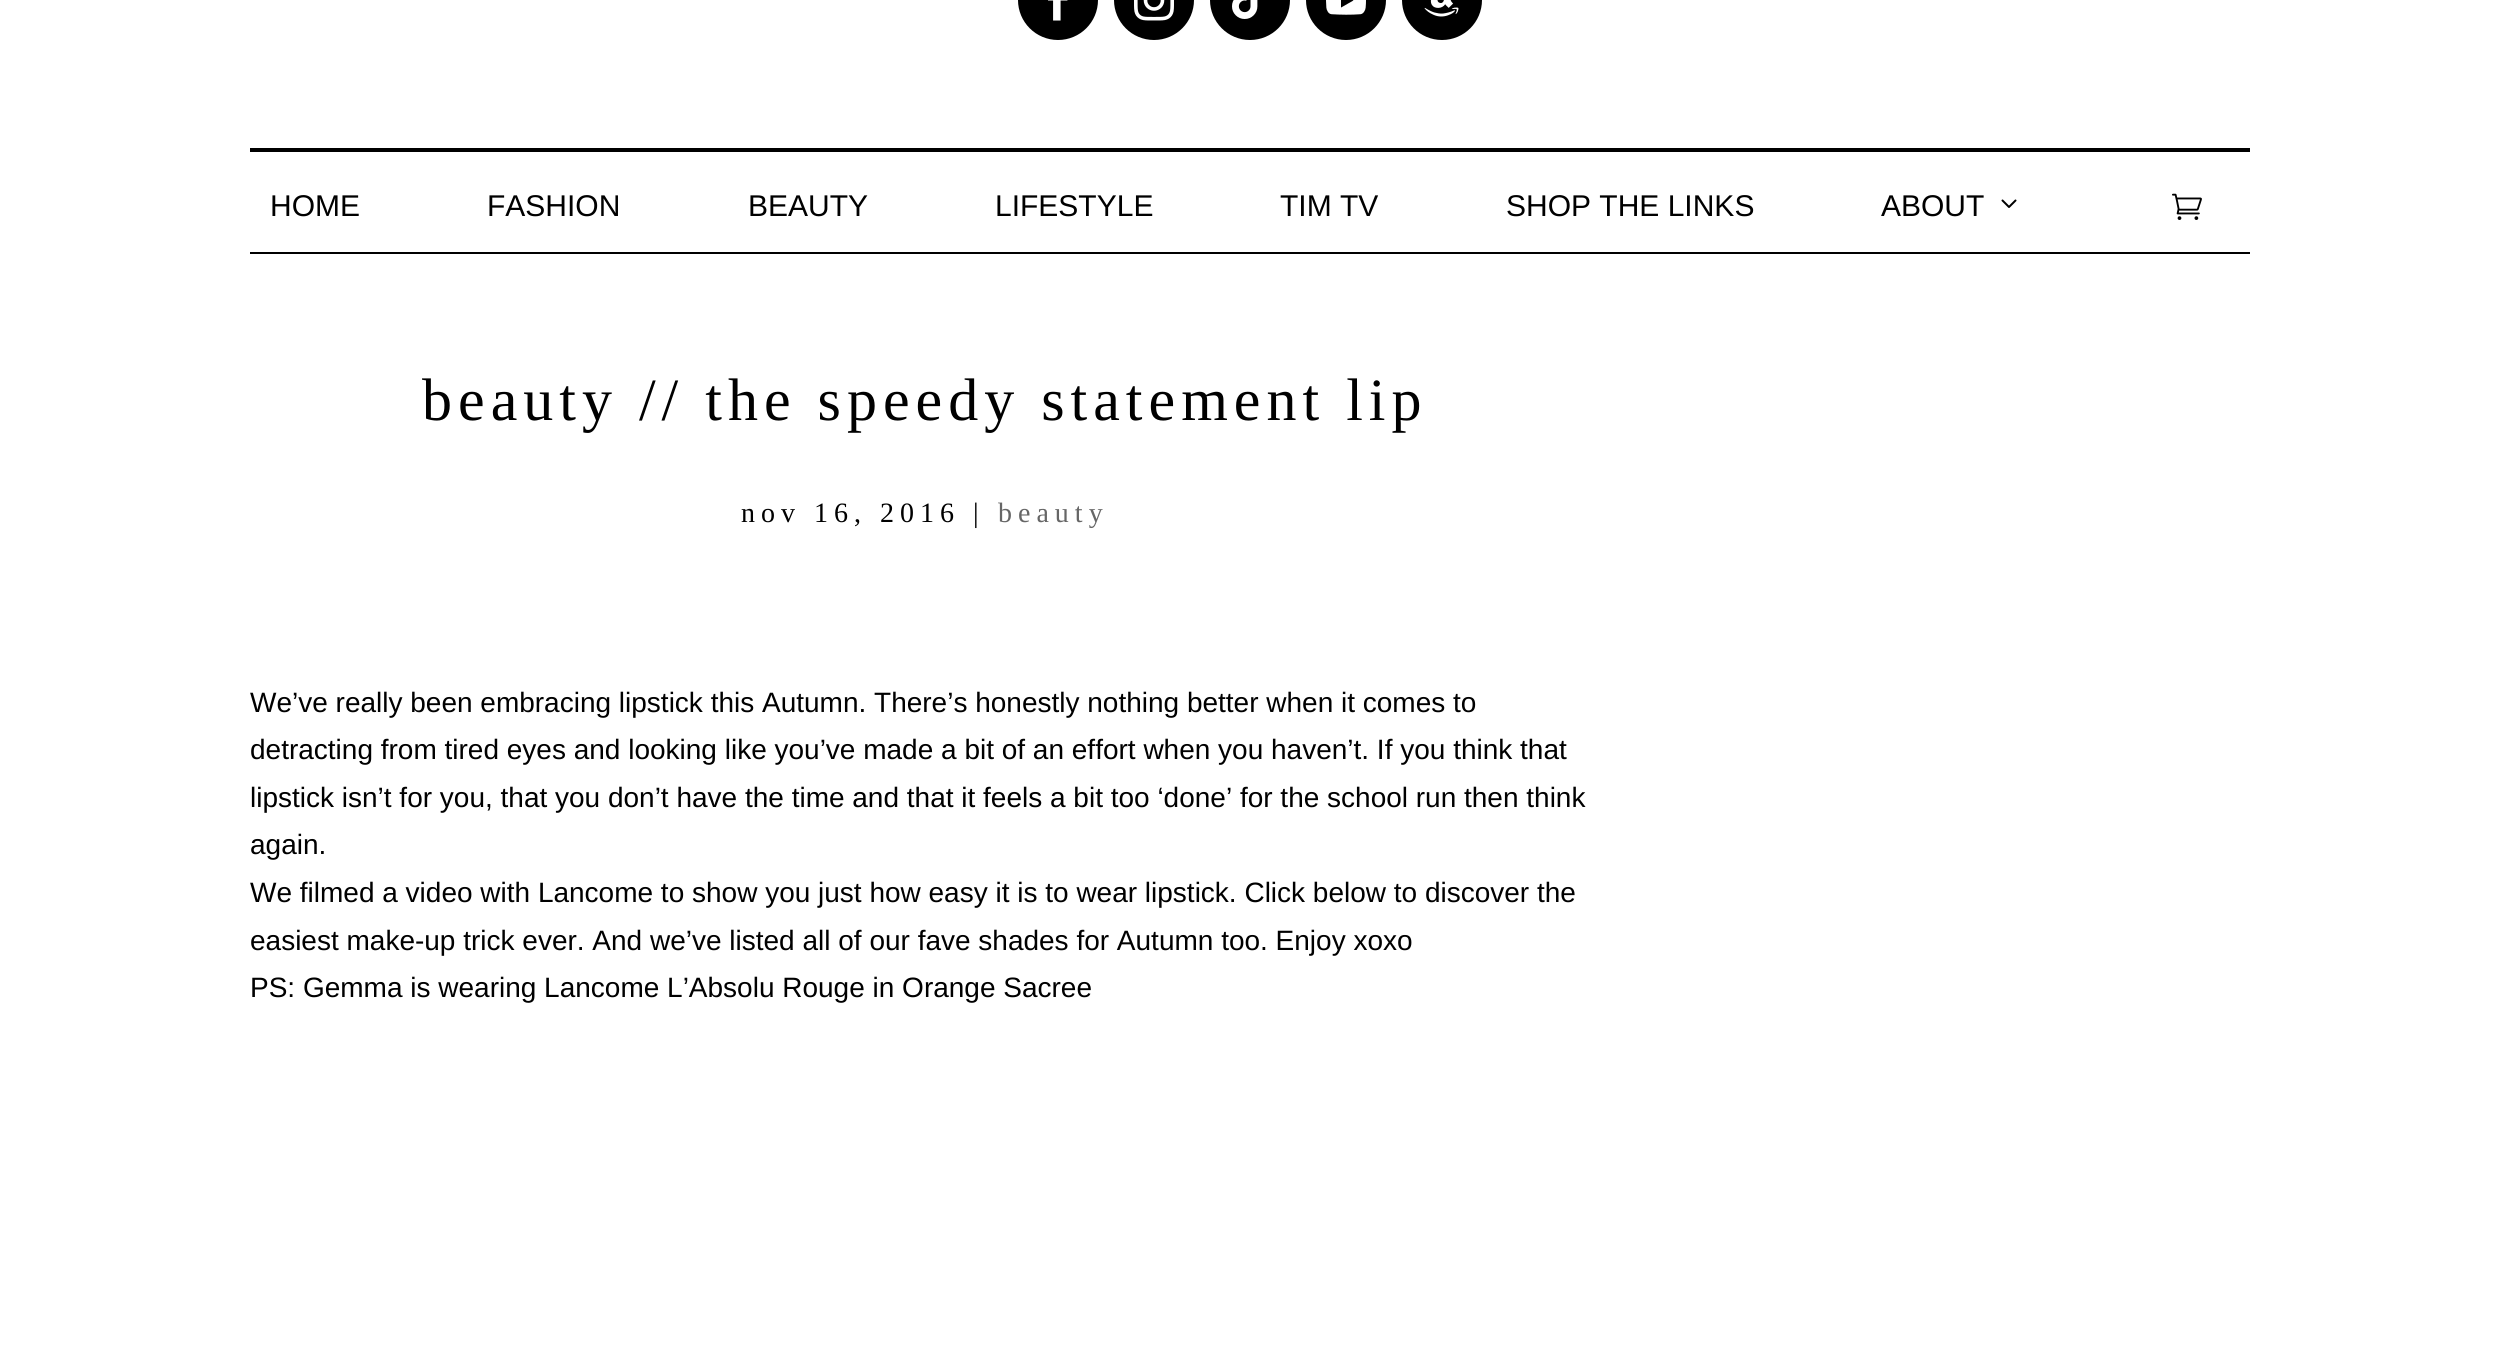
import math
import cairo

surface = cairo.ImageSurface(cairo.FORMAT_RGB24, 2499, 1349)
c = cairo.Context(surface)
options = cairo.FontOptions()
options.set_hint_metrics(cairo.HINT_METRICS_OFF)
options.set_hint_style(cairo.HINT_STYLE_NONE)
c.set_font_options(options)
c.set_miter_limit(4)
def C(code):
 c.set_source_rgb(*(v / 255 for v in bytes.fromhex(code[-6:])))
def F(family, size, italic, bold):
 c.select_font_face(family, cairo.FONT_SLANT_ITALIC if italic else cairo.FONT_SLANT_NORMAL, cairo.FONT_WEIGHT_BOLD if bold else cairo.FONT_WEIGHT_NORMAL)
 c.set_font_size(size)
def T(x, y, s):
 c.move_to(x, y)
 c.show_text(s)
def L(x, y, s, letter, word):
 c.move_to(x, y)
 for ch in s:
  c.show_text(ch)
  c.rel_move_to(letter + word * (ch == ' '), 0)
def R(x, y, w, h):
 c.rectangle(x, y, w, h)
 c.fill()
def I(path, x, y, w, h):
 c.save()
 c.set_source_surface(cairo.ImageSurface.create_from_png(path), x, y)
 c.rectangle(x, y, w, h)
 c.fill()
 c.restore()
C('ffffff')
c.paint()
C('000000')
c.arc(1058,0,40,0,2 * math.pi)
c.fill()
I('1.png',1048,0,20,21)
c.arc(1154,0,40,0,2 * math.pi)
c.fill()
I('2.png',1134,0,40,21)
c.arc(1250,0,40,0,2 * math.pi)
c.fill()
I('3.png',1232,0,26,19)
c.arc(1346,0,40,0,2 * math.pi)
c.fill()
I('4.png',1326,0,40,15)
c.arc(1442,0,40,0,2 * math.pi)
c.fill()
I('5.png',1424,0,35,17)
R(250,148,2000,4)
R(250,252,2000,2)
F('Liberation Sans',30,0,0)
T(270,216,'HOME')
T(487,216,'FASHION')
T(748,216,'BEAUTY')
T(995,216,'LIFESTYLE')
T(1280,216,'TIM TV')
T(1506,216,'SHOP THE LINKS')
T(1881,216,'ABOUT')
I('6.png',2001,199,16,9)
I('7.png',2172,193,30,27)
F('Liberation Serif',60,0,0)
L(422,420,'beauty // the speedy statement lip',6,0)
F('Liberation Serif',28,0,0)
L(741,522,'nov 16, 2016 |',6,0)
C('666666')
L(998,522,'beauty',6,0)
F('Liberation Sans',28,0,0)
C('000000')
T(250,712,'We’ve really been embracing lipstick this Autumn. There’s honestly nothing better when it comes to')
T(250,759,'detracting from tired eyes and looking like you’ve made a bit of an effort when you haven’t. If you think that')
T(250,807,'lipstick isn’t for you, that you don’t have the time and that it feels a bit too ‘done’ for the school run then think')
T(250,854,'again.')
T(250,902,'We filmed a video with Lancome to show you just how easy it is to wear lipstick. Click below to discover the')
T(250,950,'easiest make-up trick ever. And we’ve listed all of our fave shades for Autumn too. Enjoy xoxo')
T(250,997,'PS: Gemma is wearing Lancome L’Absolu Rouge in Orange Sacree')
surface.write_to_png('o.png')
